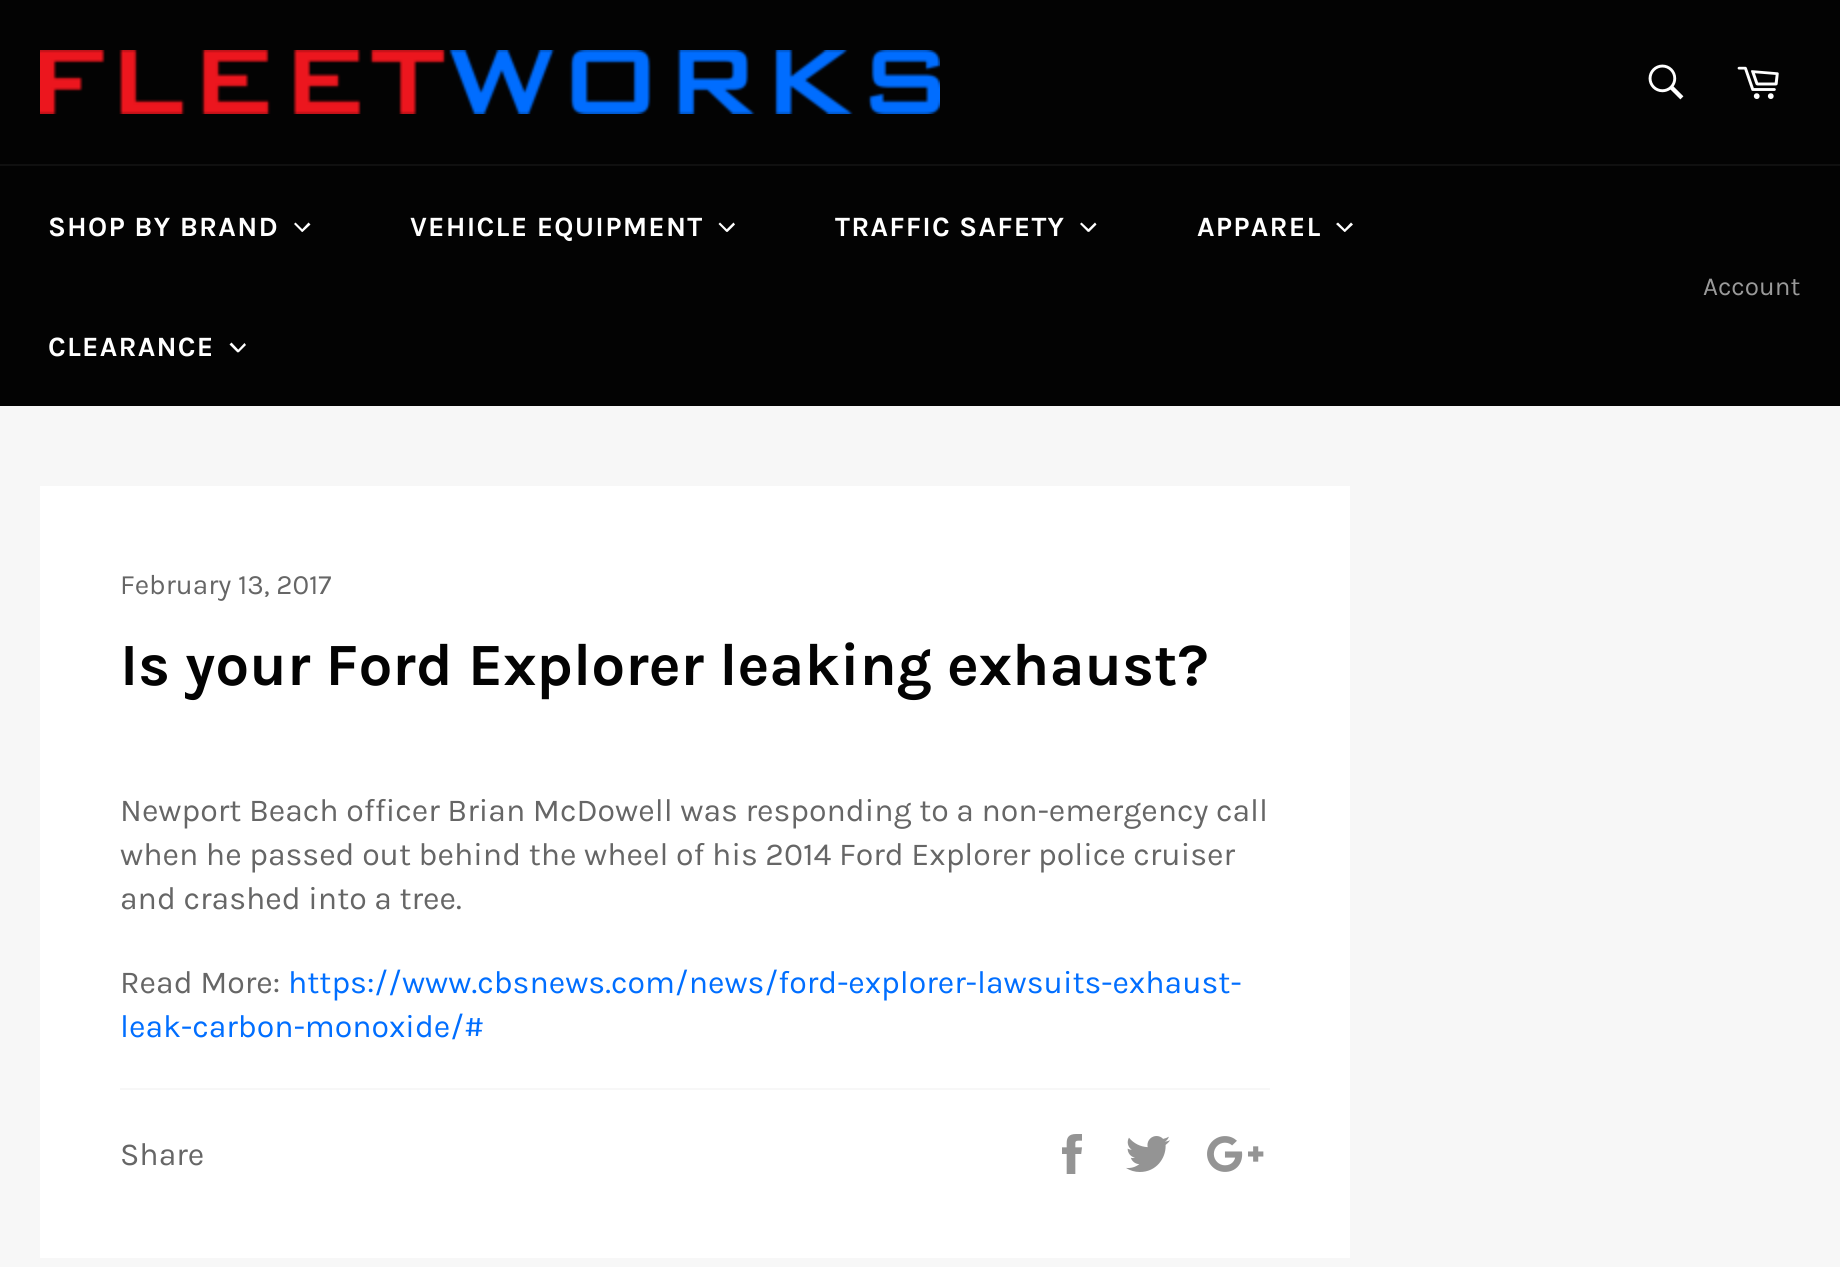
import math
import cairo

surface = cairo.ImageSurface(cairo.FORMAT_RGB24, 1840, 1267)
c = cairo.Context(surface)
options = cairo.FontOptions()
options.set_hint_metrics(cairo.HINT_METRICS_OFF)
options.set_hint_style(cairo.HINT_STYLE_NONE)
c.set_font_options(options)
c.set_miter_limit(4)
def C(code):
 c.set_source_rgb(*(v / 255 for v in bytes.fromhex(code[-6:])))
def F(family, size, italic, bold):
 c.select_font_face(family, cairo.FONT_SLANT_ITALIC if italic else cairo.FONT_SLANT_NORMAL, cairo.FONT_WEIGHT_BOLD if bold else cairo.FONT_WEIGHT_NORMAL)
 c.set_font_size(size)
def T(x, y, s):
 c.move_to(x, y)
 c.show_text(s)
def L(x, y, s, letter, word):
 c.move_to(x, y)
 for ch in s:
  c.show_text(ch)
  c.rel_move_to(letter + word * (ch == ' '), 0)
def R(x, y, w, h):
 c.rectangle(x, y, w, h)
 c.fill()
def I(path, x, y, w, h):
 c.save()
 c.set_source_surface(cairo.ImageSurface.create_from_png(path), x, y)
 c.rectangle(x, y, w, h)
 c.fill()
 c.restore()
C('f7f7f7')
c.paint()
C('030303')
R(0,0,1840,164)
I('1.png',40,50,900,64)
I('2.png',1648,64,36,36)
I('3.png',1737,66,42,33)
R(0,166,1840,240)
C('101010')
R(0,164,1840,2)
F('Karla',28,0,1)
C('ffffff')
L(48,236,'SHOP BY BRAND',1.25,0)
c.new_path()
c.move_to(308.5,222.5)
c.line_to(310.5,224.5)
c.line_to(302.5,232)
c.line_to(301,230.5)
c.close_path()
c.fill()
c.new_path()
c.move_to(295.5,222.5)
c.line_to(303.5,230.5)
c.line_to(302,232)
c.line_to(294,224)
c.close_path()
c.fill()
L(410,236,'VEHICLE EQUIPMENT',1.25,0)
c.new_path()
c.move_to(733.5,222.5)
c.line_to(735,224.5)
c.line_to(727.5,232)
c.line_to(725.5,230.5)
c.close_path()
c.fill()
c.new_path()
c.move_to(720,222.5)
c.line_to(728,230.5)
c.line_to(726.5,232)
c.line_to(718.5,224)
c.close_path()
c.fill()
L(835,236,'TRAFFIC SAFETY',1.25,0)
c.new_path()
c.move_to(1095,222.5)
c.line_to(1096.5,224.5)
c.line_to(1089,232)
c.line_to(1087,230.5)
c.close_path()
c.fill()
c.new_path()
c.move_to(1081.5,222.5)
c.line_to(1090,230.5)
c.line_to(1088,232)
c.line_to(1080,224)
c.close_path()
c.fill()
L(1197,236,'APPAREL',1.25,0)
c.new_path()
c.move_to(1351,222.5)
c.line_to(1353,224.5)
c.line_to(1345,232)
c.line_to(1343.5,230.5)
c.close_path()
c.fill()
c.new_path()
c.move_to(1338,222.5)
c.line_to(1346,230.5)
c.line_to(1344.5,232)
c.line_to(1336,224)
c.close_path()
c.fill()
L(48,356,'CLEARANCE',1.25,0)
c.new_path()
c.move_to(244.5,343)
c.line_to(246,345)
c.line_to(238.5,352.5)
c.line_to(237,351)
c.close_path()
c.fill()
c.new_path()
c.move_to(231.5,342.5)
c.line_to(239.5,351)
c.line_to(237.5,352.5)
c.line_to(229.5,344.5)
c.close_path()
c.fill()
F('Karla',26,0,0)
C('9a9a9a')
T(1703,295,'Account')
C('ffffff')
R(40,486,1310,772)
F('Karla',28,0,0)
C('666666')
T(120,594,'February 13, 2017')
F('Karla',60,0,1)
C('030303')
T(120,685,'Is your Ford Explorer leaking exhaust?')
F('Karla',32,0,0)
C('666666')
T(120,821,'Newport Beach officer Brian McDowell was responding to a non-emergency call')
T(120,865,'when he passed out behind the wheel of his 2014 Ford Explorer police cruiser')
T(120,909,'and crashed into a tree.')
T(120,993,'Read More:')
C('006eff')
T(288,993,'https://www.cbsnews.com/news/ford-explorer-lawsuits-exhaust-')
T(120,1037,'leak-carbon-monoxide/#')
C('f7f7f7')
R(120,1088,1150,2)
C('666666')
T(120,1165,'Share')
I('4.png',1062,1134,20,40)
I('5.png',1126,1136,44,36)
I('6.png',1207,1136,57,36)
surface.write_to_png('o.png')
